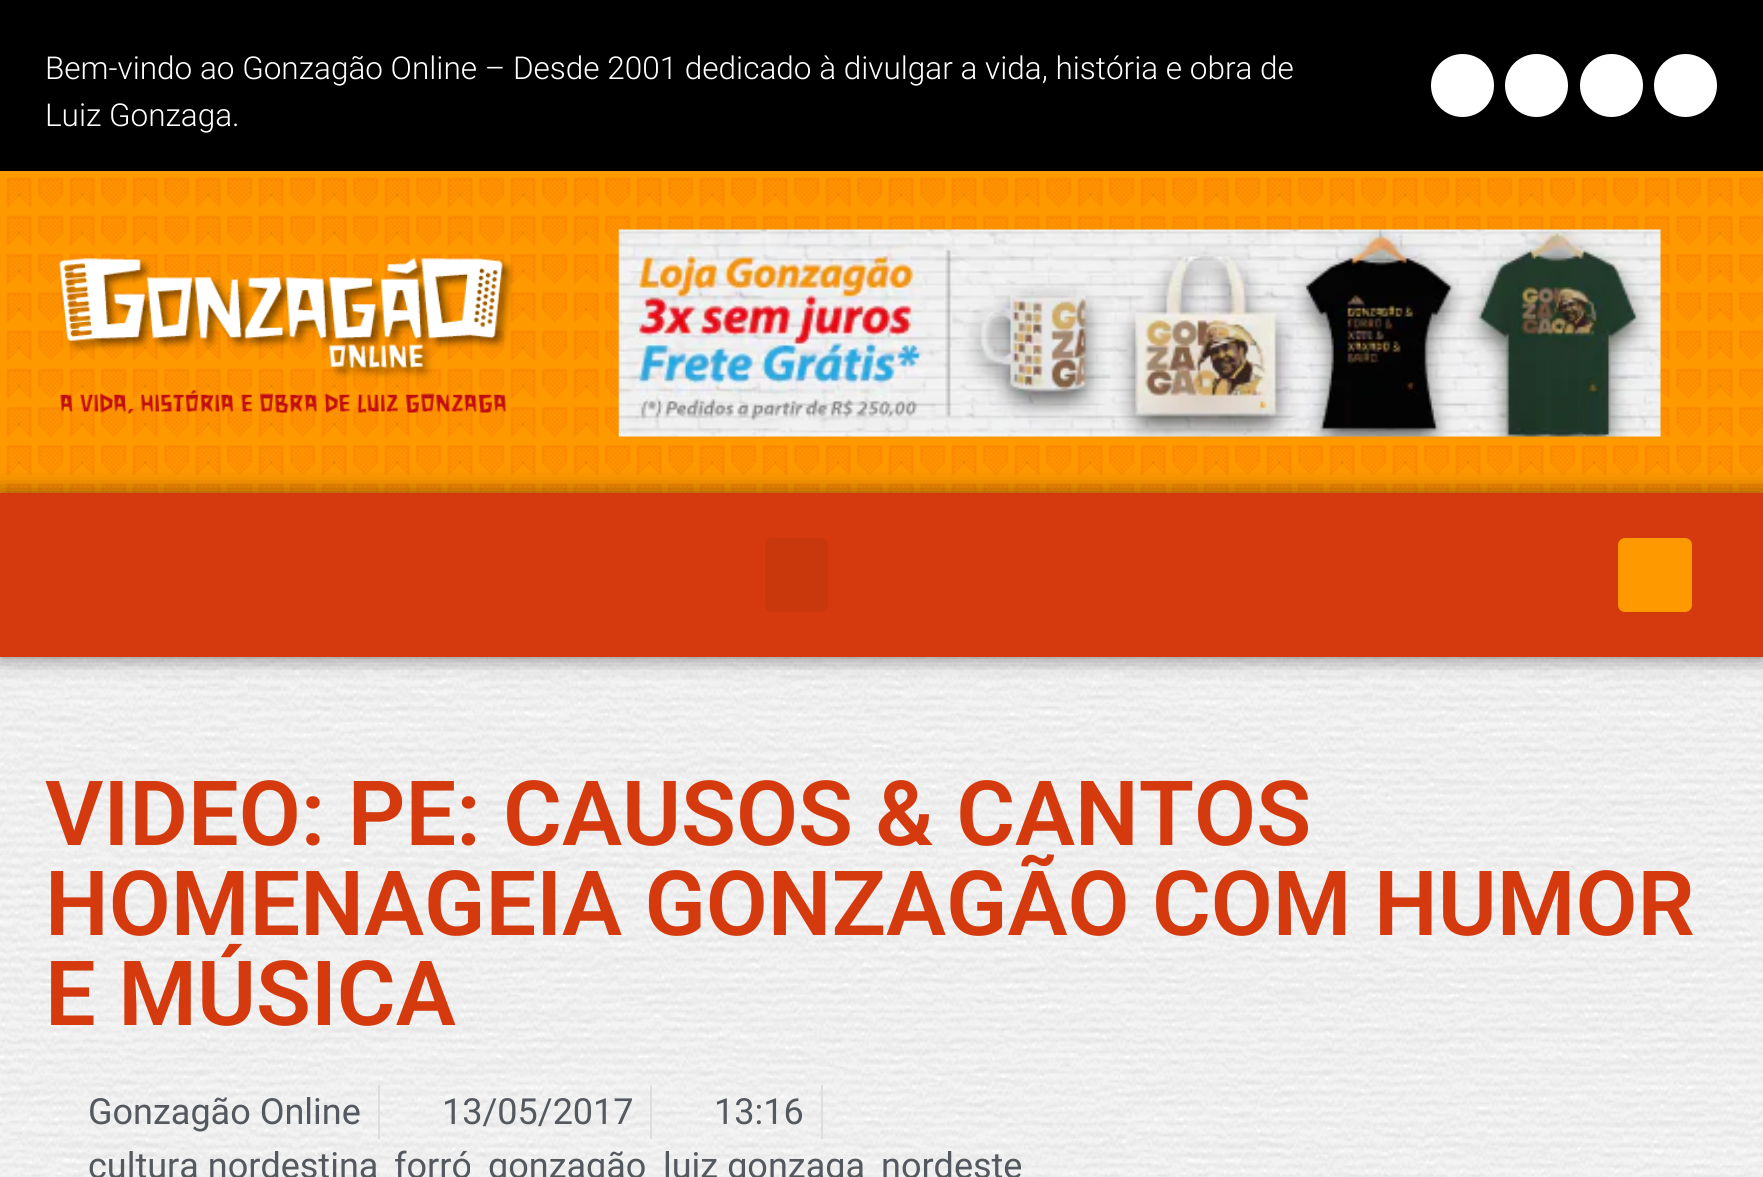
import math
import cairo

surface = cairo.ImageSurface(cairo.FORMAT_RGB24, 1763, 1177)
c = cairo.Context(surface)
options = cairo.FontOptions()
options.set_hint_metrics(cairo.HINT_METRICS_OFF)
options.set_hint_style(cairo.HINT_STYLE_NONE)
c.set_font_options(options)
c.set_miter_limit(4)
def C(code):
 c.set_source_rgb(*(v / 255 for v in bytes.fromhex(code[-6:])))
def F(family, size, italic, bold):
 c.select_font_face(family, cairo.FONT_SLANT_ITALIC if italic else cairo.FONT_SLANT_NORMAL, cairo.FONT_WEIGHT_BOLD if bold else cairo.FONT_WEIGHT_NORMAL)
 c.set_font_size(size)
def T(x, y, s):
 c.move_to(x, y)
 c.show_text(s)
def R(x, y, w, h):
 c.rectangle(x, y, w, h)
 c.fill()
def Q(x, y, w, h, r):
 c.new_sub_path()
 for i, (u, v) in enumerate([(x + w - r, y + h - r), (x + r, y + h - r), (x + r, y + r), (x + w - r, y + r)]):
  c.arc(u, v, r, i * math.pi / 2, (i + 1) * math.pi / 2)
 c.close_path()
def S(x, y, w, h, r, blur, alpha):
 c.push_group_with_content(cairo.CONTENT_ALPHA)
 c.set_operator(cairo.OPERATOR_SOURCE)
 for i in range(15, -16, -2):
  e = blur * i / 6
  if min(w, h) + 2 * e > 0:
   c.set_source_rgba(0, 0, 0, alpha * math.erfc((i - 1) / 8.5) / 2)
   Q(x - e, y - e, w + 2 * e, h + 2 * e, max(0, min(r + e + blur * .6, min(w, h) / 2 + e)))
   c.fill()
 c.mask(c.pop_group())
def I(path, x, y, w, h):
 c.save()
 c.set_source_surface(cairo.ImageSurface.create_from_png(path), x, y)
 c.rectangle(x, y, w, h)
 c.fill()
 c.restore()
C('ffffff')
c.paint()
I('1.png',0,657,1763,520)
C('000000')
R(0,0,1763,171)
F('Roboto Light',31.5,0,0)
C('ffffff')
T(45,79,'Bem-vindo ao Gonzagão Online – Desde 2001 dedicado à divulgar a vida, história e obra de')
T(45,126,'Luiz Gonzaga.')
c.new_path()
c.arc(1462.5,85.5,31.5,0,2 * math.pi)
c.fill()
c.arc(1536.5,85.5,31.5,0,2 * math.pi)
c.fill()
c.arc(1611.5,85.5,31.5,0,2 * math.pi)
c.fill()
c.arc(1685.5,85.5,31.5,0,2 * math.pi)
c.fill()
C('ff9900')
R(0,171,1763,322)
I('2.png',0,177,1763,316)
I('3.png',59,257,455,157)
I('4.png',618,229,1043,208)
C('000000')
S(0,493,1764,164,0,11,.5)
C('d43a0d')
R(0,493,1763,164)
C('c9370c')
Q(765,538,63,74,7)
c.fill()
C('ff9900')
Q(1618,538,74,74,7)
c.fill()
F('Roboto SemiBold',90,0,0)
C('d43a0d')
T(45,845,'VIDEO: PE: CAUSOS & CANTOS')
T(45,935,'HOMENAGEIA GONZAGÃO COM HUMOR')
T(45,1025,'E MÚSICA')
F('Roboto',36,0,0)
C('54595f')
T(88,1124,'Gonzagão Online')
C('dddddd')
R(378,1085,2,54)
C('54595f')
T(442,1124,'13/05/2017')
C('dddddd')
R(650,1085,2,54)
C('54595f')
T(714,1124,'13:16')
C('dddddd')
R(821,1085,2,54)
C('54595f')
T(88,1178,'cultura nordestina')
T(394,1178,'forró')
T(488,1178,'gonzagão')
T(663,1178,'luiz gonzaga')
T(881,1178,'nordeste')
surface.write_to_png('o.png')
